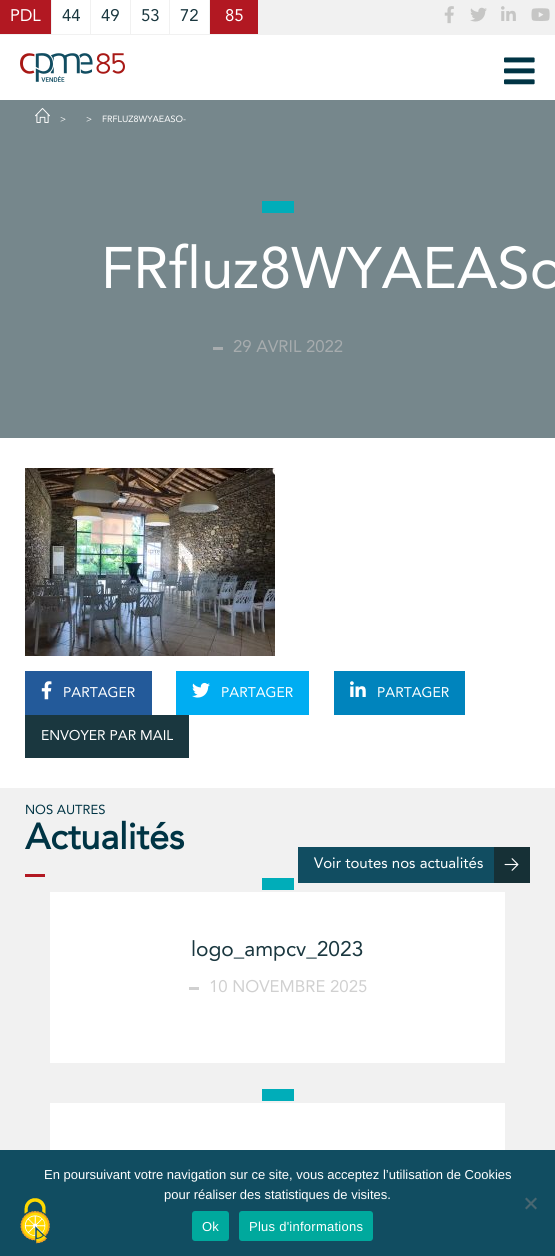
import math
import cairo

surface = cairo.ImageSurface(cairo.FORMAT_RGB24, 555, 1256)
c = cairo.Context(surface)
options = cairo.FontOptions()
options.set_hint_metrics(cairo.HINT_METRICS_OFF)
options.set_hint_style(cairo.HINT_STYLE_NONE)
c.set_font_options(options)
c.set_miter_limit(4)
def C(code):
 c.set_source_rgb(*(v / 255 for v in bytes.fromhex(code[-6:])))
def F(family, size, italic, bold):
 c.select_font_face(family, cairo.FONT_SLANT_ITALIC if italic else cairo.FONT_SLANT_NORMAL, cairo.FONT_WEIGHT_BOLD if bold else cairo.FONT_WEIGHT_NORMAL)
 c.set_font_size(size)
def T(x, y, s):
 c.move_to(x, y)
 c.show_text(s)
def L(x, y, s, letter, word):
 c.move_to(x, y)
 for ch in s:
  c.show_text(ch)
  c.rel_move_to(letter + word * (ch == ' '), 0)
def R(x, y, w, h):
 c.rectangle(x, y, w, h)
 c.fill()
def Q(x, y, w, h, r):
 c.new_sub_path()
 for i, (u, v) in enumerate([(x + w - r, y + h - r), (x + r, y + h - r), (x + r, y + r), (x + w - r, y + r)]):
  c.arc(u, v, r, i * math.pi / 2, (i + 1) * math.pi / 2)
 c.close_path()
def I(path, x, y, w, h):
 c.save()
 c.set_source_surface(cairo.ImageSurface.create_from_png(path), x, y)
 c.rectangle(x, y, w, h)
 c.fill()
 c.restore()
C('ffffff')
c.paint()
C('f1f1f1')
R(258,0,297,35)
C('b21822')
R(0,0,51,34)
C('f1f1f1')
R(51,0,1,35)
R(0,34,52,1)
F('Avenir',16.75,0,0)
C('ffffff')
T(10,21,'PDL')
C('f1f1f1')
R(90,0,1,35)
R(52,34,39,1)
C('1a373f')
T(62,21,'44')
C('f1f1f1')
R(130,0,1,35)
R(91,34,40,1)
C('1a373f')
T(101,21,'49')
C('f1f1f1')
R(169,0,1,35)
R(131,34,39,1)
C('1a373f')
T(141,21,'53')
C('f1f1f1')
R(209,0,1,35)
R(170,34,89,1)
C('1a373f')
T(180,21,'72')
C('b21822')
R(210,0,48,34)
C('ffffff')
T(225,21,'85')
I('1.png',444,6,10,18)
I('2.png',470,7,17,15)
I('3.png',501,6,15,15)
I('4.png',531,8,19,13)
I('5.png',20,53,105,29)
I('6.png',504,57,31,28)
C('76878c')
R(0,100,555,338)
I('7.png',35,108,15,15)
F('Avenir',9,0,0)
C('ffffff')
T(60,122,'>')
T(86,122,'>')
T(102,122,'FRFLUZ8WYAEASO-')
C('00adb9')
R(262,201,32,12)
F('Avenir',58,0,0)
C('ffffff')
T(101,288,'FRfluz8WYAEASo')
C('a7acae')
R(213,347,10,3)
F('Avenir',16.75,0,0)
T(233,352,'29 AVRIL 2022')
I('8.png',25,468,250,188)
C('235a9a')
R(25,671,127,44)
I('9.png',41,681,11,19)
F('Avenir',14,0,0)
C('ffffff')
T(63,697,'PARTAGER')
C('00adf2')
R(176,671,133,44)
I('10.png',192,682,18,16)
C('ffffff')
T(221,697,'PARTAGER')
C('0084bd')
R(334,671,131,44)
I('11.png',350,681,16,16)
C('ffffff')
T(377,697,'PARTAGER')
C('1a373f')
R(25,715,164,43)
C('ffffff')
T(41,740,'ENVOYER PAR MAIL')
C('f1f1f1')
R(0,788,555,362)
F('Avenir',13,0,0)
C('003444')
T(25,814,'NOS AUTRES')
F('Avenir',36,0,1)
T(25,849,'Actualités')
C('114d61')
R(298,847,196,36)
F('Avenir',15,0,0)
C('ffffff')
T(314,868,'Voir toutes nos actualités')
C('163036')
R(494,847,36,36)
I('12.png',504,858,15,13)
C('b21822')
R(25,874,20,3)
C('ffffff')
R(50,892,455,171)
C('00adb9')
R(262,878,32,12)
F('Avenir',21,0,0)
C('1a373f')
T(191,956,'logo_ampcv_2023')
C('d0d0d0')
R(189,987,10,3)
F('Avenir',16.75,0,0)
T(209,992,'10 NOVEMBRE 2025')
C('ffffff')
R(50,1103,455,47)
C('00adb9')
R(262,1089,32,12)
C('114d61')
R(0,1150,555,106)
I('13.png',20,1198,30,46)
F('Liberation Sans',13,0,0)
C('ffffff')
T(44,1179,'En poursuivant votre navigation sur ce site, vous acceptez l’utilisation de Cookies')
T(164,1199,'pour réaliser des statistiques de visites.')
C('496771')
c.new_path()
c.move_to(535.5,1197.5)
c.line_to(537,1199)
c.line_to(526.5,1209.5)
c.line_to(525,1208)
c.close_path()
c.fill()
c.new_path()
c.move_to(525,1199)
c.line_to(526.5,1197.5)
c.line_to(537,1208)
c.line_to(535.5,1209.5)
c.close_path()
c.fill()
C('00a99d')
Q(192,1211,37,30,3)
c.fill()
C('ffffff')
L(202,1231,'Ok',.25,0)
C('00a99d')
Q(239,1211,134,30,3)
c.fill()
C('ffffff')
L(249,1231,'Plus d\'informations',.25,0)
surface.write_to_png('o.png')
